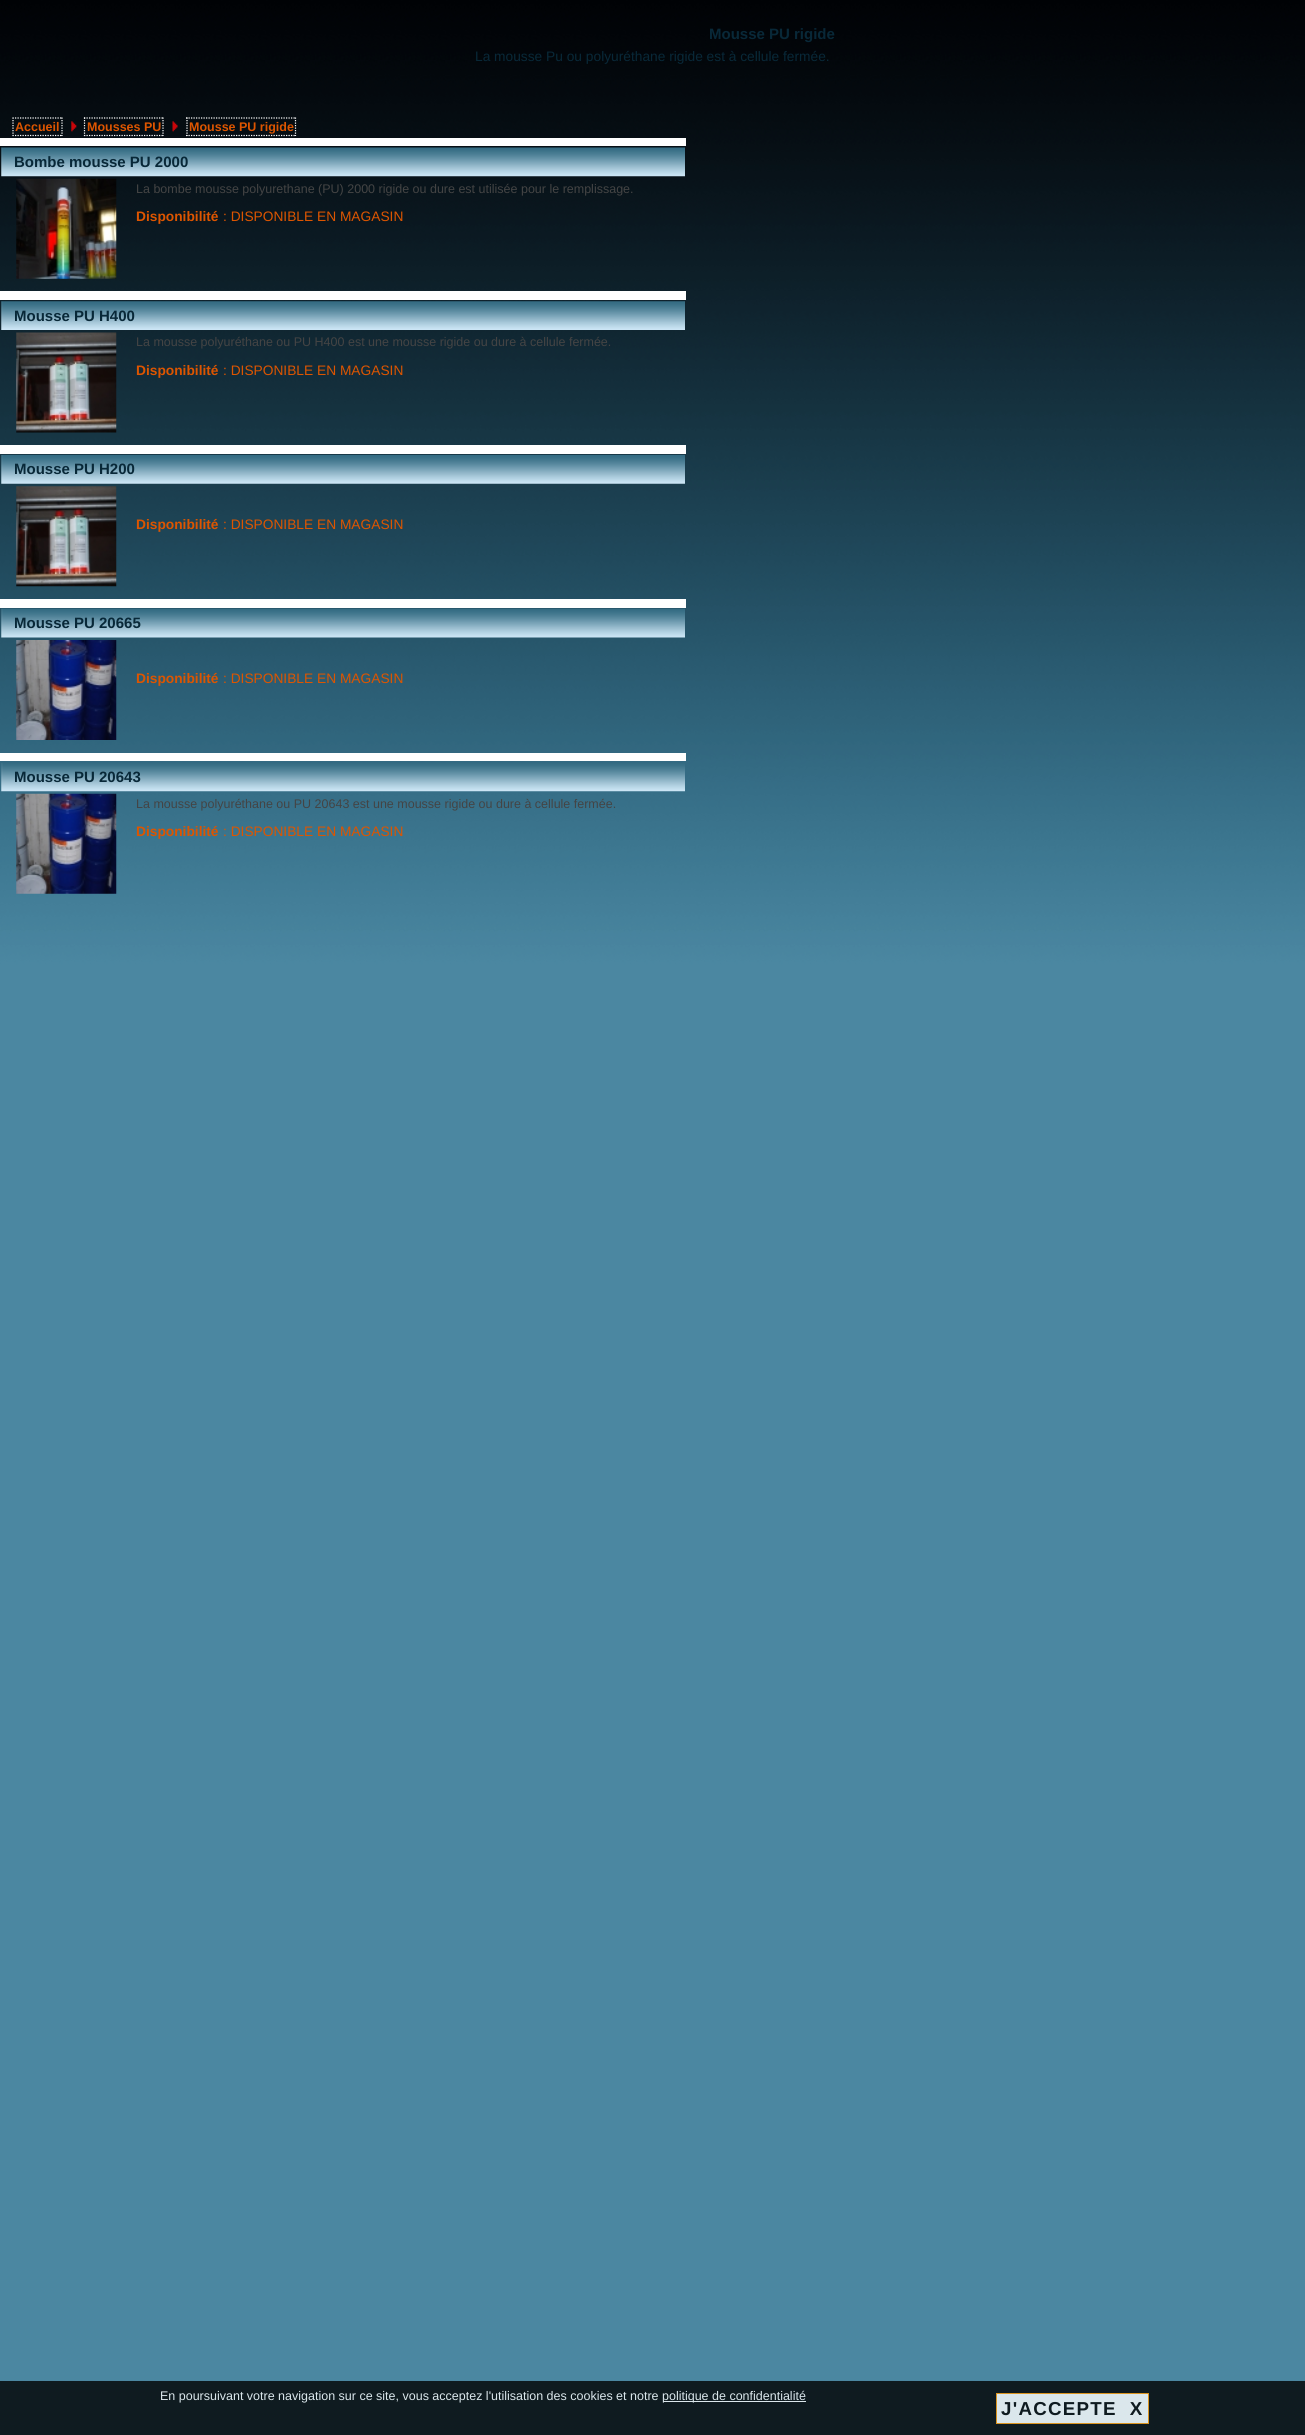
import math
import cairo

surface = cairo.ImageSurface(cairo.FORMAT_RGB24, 1305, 2435)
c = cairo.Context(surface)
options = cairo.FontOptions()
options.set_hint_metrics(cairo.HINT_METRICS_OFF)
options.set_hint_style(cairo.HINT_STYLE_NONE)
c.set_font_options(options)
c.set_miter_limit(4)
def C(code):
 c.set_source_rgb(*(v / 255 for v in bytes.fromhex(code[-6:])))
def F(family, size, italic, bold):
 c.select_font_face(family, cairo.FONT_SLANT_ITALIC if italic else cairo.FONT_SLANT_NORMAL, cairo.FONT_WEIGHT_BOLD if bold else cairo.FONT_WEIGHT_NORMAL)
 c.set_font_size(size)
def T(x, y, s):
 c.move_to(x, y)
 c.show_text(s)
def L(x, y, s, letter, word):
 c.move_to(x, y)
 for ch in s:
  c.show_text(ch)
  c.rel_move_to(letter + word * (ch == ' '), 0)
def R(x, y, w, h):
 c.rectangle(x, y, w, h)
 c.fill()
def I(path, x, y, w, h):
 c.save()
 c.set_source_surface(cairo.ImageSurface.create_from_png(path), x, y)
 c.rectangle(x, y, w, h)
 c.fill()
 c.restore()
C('ffffff')
c.paint()
I('1.png',0,0,1305,2381)
F('Liberation Sans',15,0,1)
C('082838')
T(709,39,'Mousse PU rigide')
F('Liberation Sans',13.75,0,0)
T(475,61,'La mousse Pu ou polyuréthane rigide est à cellule fermée.')
c.new_path()
c.move_to(12.5,118)
c.line_to(62.5,118)
c.move_to(62,117.5)
c.line_to(62,136)
c.move_to(12.5,135.5)
c.line_to(62.5,135.5)
c.move_to(13,117.5)
c.line_to(13,136)
C('ffffff')
c.set_line_width(1.2)
c.set_dash([1.25,1.25])
c.stroke()
F('Liberation Sans',12.5,0,1)
C('dd5500')
T(15,131,'Accueil')
I('2.png',71,121,6,11)
T(87,131,'Mousses PU')
c.new_path()
c.move_to(84,118)
c.line_to(164,118)
C('ffffff')
c.stroke()
c.new_path()
c.move_to(163,117.5)
c.line_to(163,136)
c.stroke()
c.new_path()
c.move_to(84,135.5)
c.line_to(164,135.5)
c.stroke()
c.new_path()
c.move_to(84.5,117.5)
c.line_to(84.5,136)
c.stroke()
I('3.png',172,121,6,11)
C('dd5500')
T(189,131,'Mousse PU rigide')
c.new_path()
c.move_to(186,118)
c.line_to(296,118)
C('ffffff')
c.stroke()
c.new_path()
c.move_to(295.5,117.5)
c.line_to(295.5,136)
c.stroke()
c.new_path()
c.move_to(186,135.5)
c.line_to(296,135.5)
c.stroke()
c.new_path()
c.move_to(187,117.5)
c.line_to(187,136)
c.stroke()
R(0,138,686,8)
I('4.png',1,147,684,30)
F('Liberation Sans',15,0,1)
C('082838')
T(14,167,'Bombe mousse PU 2000')
I('5.png',16,178,101,101)
F('Liberation Sans',12.5,0,0)
C('444444')
T(136,193,'La bombe mousse polyurethane (PU) 2000 rigide ou dure est utilisée pour le remplissage.')
F('Liberation Sans',13.75,0,1)
C('dd5500')
T(136,221,'Disponibilité')
F('Liberation Sans',13.75,0,0)
T(223,221,': DISPONIBLE EN MAGASIN')
C('ffffff')
R(0,291,686,9)
I('6.png',1,301,684,29)
F('Liberation Sans',15,0,1)
C('082838')
T(14,321,'Mousse PU H400')
I('7.png',16,332,101,101)
F('Liberation Sans',12.5,0,0)
C('444444')
T(136,346,'La mousse polyuréthane ou PU H400 est une mousse rigide ou dure à cellule fermée.')
F('Liberation Sans',13.75,0,1)
C('dd5500')
T(136,375,'Disponibilité')
F('Liberation Sans',13.75,0,0)
T(223,375,': DISPONIBLE EN MAGASIN')
C('ffffff')
R(0,445,686,9)
I('8.png',1,455,684,29)
F('Liberation Sans',15,0,1)
C('082838')
T(14,474,'Mousse PU H200')
I('9.png',16,486,101,101)
F('Liberation Sans',13.75,0,1)
C('dd5500')
T(136,529,'Disponibilité')
F('Liberation Sans',13.75,0,0)
T(223,529,': DISPONIBLE EN MAGASIN')
C('ffffff')
R(0,599,686,9)
I('10.png',1,608,684,30)
F('Liberation Sans',15,0,1)
C('082838')
T(14,628,'Mousse PU 20665')
I('11.png',16,640,101,100)
F('Liberation Sans',13.75,0,1)
C('dd5500')
T(136,683,'Disponibilité')
F('Liberation Sans',13.75,0,0)
T(223,683,': DISPONIBLE EN MAGASIN')
C('ffffff')
R(0,753,686,8)
I('12.png',1,763,684,29)
F('Liberation Sans',15,0,1)
C('082838')
T(14,782,'Mousse PU 20643')
I('13.png',16,793,101,101)
F('Liberation Sans',12.5,0,0)
C('444444')
T(136,808,'La mousse polyuréthane ou PU 20643 est une mousse rigide ou dure à cellule fermée.')
F('Liberation Sans',13.75,0,1)
C('dd5500')
T(136,836,'Disponibilité')
F('Liberation Sans',13.75,0,0)
T(223,836,': DISPONIBLE EN MAGASIN')
C('0f1b20')
R(0,2381,1305,54)
F('Liberation Sans',12.5,0,0)
C('dbe7ec')
T(160,2400,'En poursuivant votre navigation sur ce site, vous acceptez l\'utilisation des cookies et notre')
R(663,2401,143,1)
T(662,2400,'politique de confidentialité')
c.rectangle(996.5,2393.5,152,30)
c.fill_preserve()
C('db9520')
c.set_line_width(1)
c.set_dash([])
c.stroke()
F('Liberation Sans',18.75,0,1)
C('0f1b20')
L(1001,2415,'J\'ACCEPTE  X',1.25,0)
surface.write_to_png('o.png')
